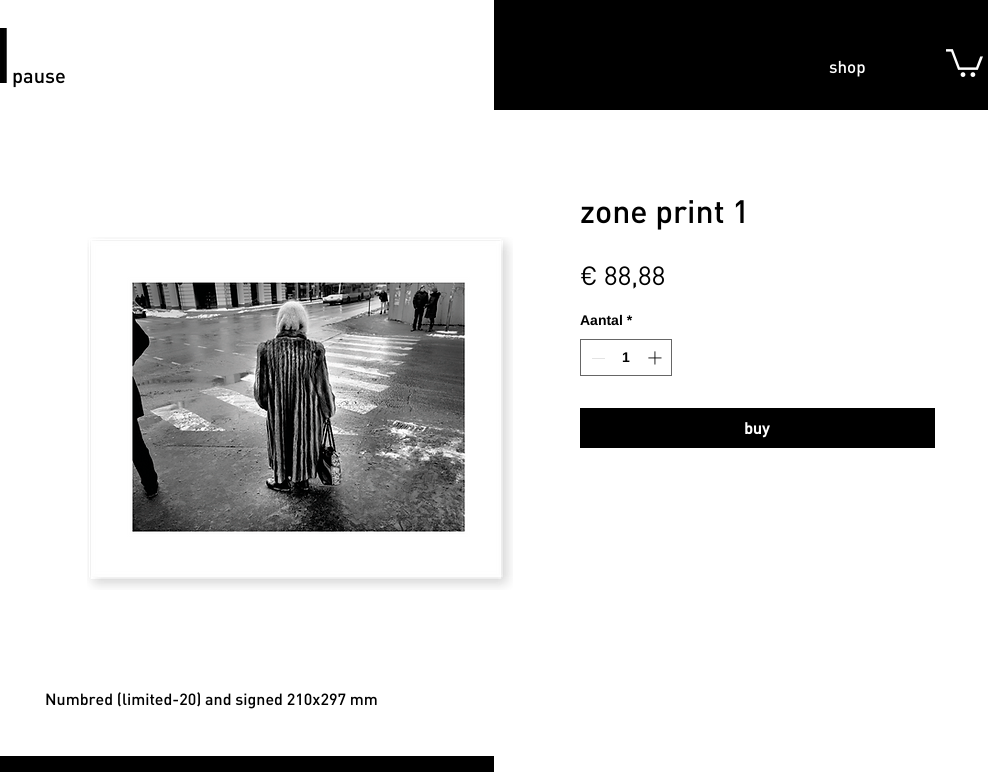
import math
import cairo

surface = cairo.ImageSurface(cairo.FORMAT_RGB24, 988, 772)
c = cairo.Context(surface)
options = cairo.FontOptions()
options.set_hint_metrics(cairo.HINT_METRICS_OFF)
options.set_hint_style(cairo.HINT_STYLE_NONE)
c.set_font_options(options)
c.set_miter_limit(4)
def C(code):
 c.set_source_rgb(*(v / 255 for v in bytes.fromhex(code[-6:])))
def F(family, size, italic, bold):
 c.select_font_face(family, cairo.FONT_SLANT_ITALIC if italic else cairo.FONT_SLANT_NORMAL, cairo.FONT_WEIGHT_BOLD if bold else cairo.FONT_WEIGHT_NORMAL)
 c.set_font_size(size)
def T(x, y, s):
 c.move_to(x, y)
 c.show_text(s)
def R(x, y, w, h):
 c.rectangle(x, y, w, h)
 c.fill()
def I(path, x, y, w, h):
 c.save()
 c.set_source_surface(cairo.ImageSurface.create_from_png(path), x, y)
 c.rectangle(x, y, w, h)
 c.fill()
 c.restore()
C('ffffff')
c.paint()
C('000000')
R(494,0,494,110)
F('DIN Medium',17,0,0)
C('ffffff')
T(829,73,'shop')
I('1.png',946,49,37,28)
I('2.png',0,28,7,55)
F('DIN Medium',20,0,0)
C('000000')
T(12,83,'pause')
F('DIN Medium',32,0,0)
T(580,223,'zone print 1')
F('DIN',26,0,0)
T(580,285,'€ 88,88')
F('Liberation Sans',14,0,1)
T(580,325,'Aantal *')
c.rectangle(580.5,339.5,91,36)
C('666666')
c.set_line_width(1)
c.stroke()
C('e3e3e3')
R(592,358,13,1)
C('000000')
T(622,362,'1')
I('3.png',648,351,14,14)
R(580,408,355,40)
F('DIN',16,0,1)
C('ffffff')
T(744,434,'buy')
I('4.png',87,237,426,353)
F('DIN Medium',16,0,0)
C('000000')
T(45,705,'Numbred (limited-20) and signed 210x297 mm')
R(0,756,494,16)
surface.write_to_png('o.png')
